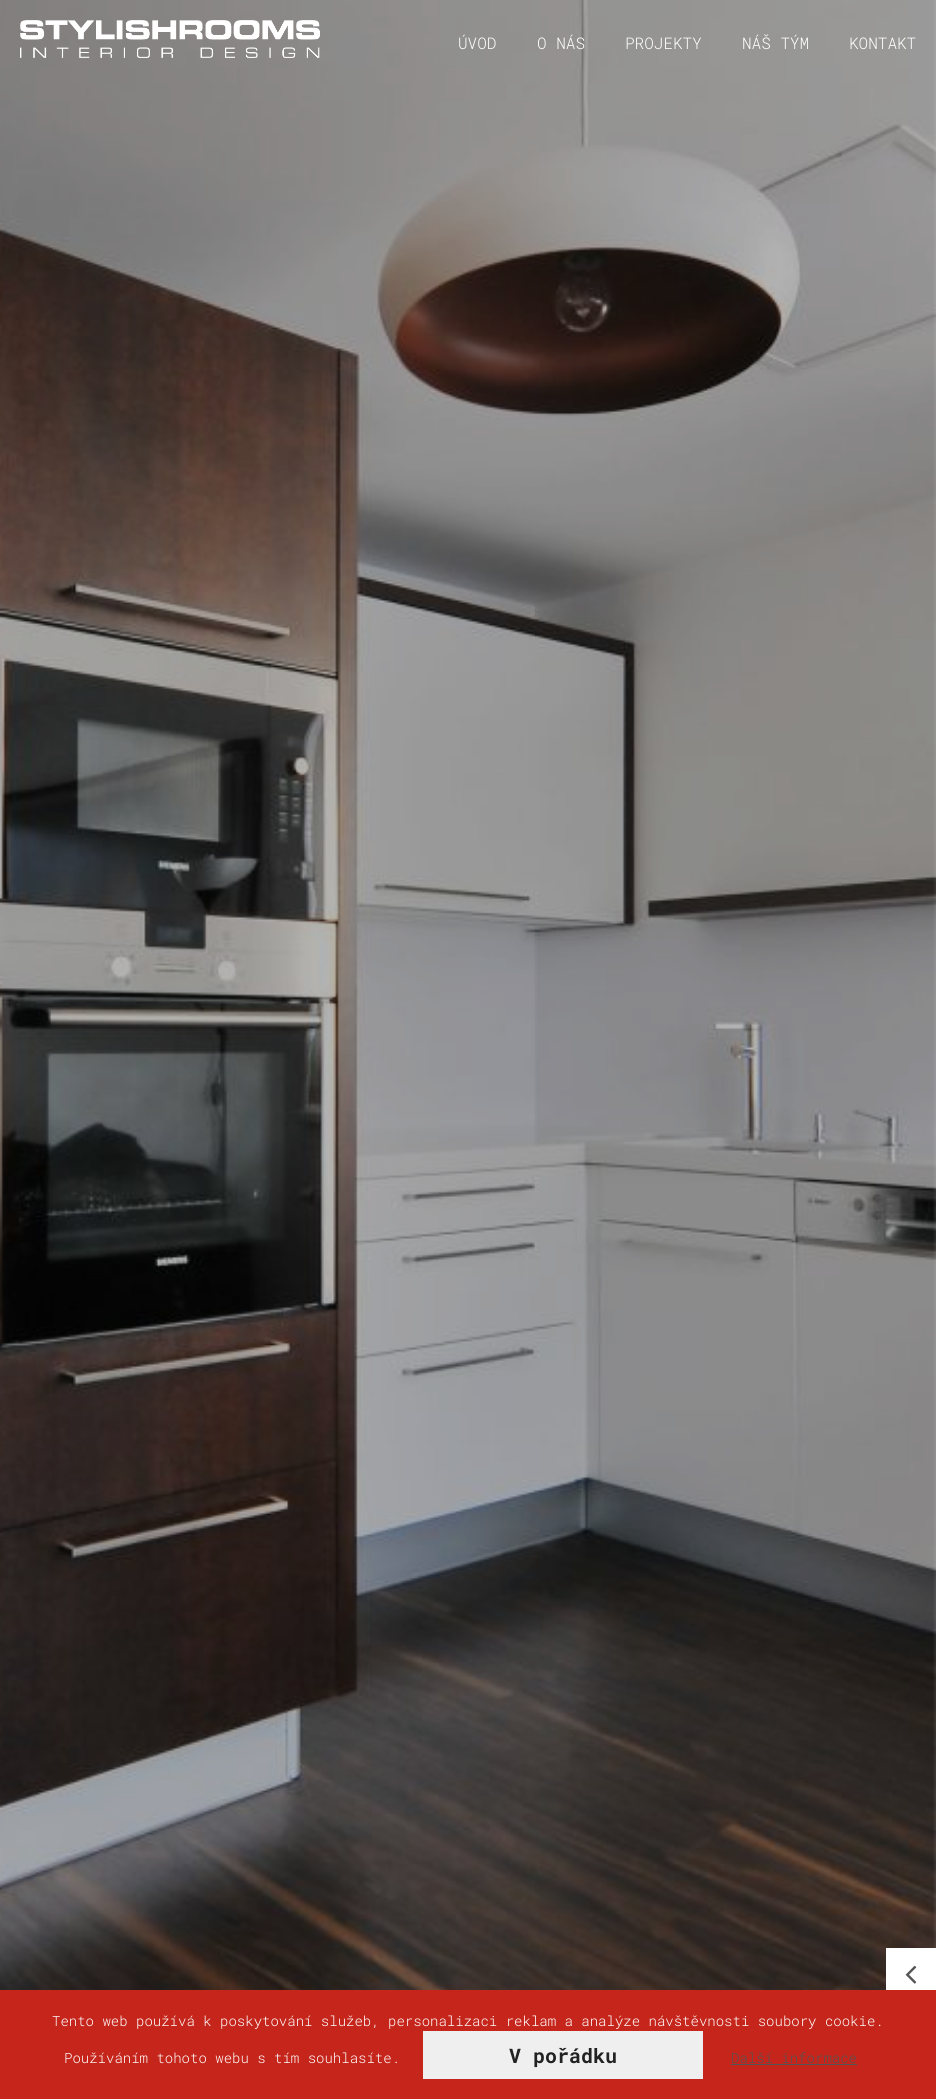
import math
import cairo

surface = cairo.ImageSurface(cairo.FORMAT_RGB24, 936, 2099)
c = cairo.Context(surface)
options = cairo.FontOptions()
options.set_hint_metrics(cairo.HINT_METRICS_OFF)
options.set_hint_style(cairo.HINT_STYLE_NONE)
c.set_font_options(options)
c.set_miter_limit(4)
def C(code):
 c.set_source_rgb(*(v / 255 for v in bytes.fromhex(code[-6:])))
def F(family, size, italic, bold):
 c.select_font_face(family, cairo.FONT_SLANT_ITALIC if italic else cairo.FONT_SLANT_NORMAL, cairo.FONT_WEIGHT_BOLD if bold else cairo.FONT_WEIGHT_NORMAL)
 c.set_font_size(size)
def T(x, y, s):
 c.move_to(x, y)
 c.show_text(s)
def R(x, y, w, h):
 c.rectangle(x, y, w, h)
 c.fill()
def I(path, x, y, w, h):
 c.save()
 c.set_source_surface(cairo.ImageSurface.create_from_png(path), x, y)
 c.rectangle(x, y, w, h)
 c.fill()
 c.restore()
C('ffffff')
c.paint()
I('1.png',0,0,936,1990)
C('ffffff')
R(886,1948,50,42)
I('2.png',905,1965,12,19)
I('3.png',20,20,300,38)
F('Roboto Mono Light',16,0,0)
T(458,49,'ÚVOD')
T(537,49,'O NÁS')
T(625,49,'PROJEKTY')
T(742,49,'NÁŠ TÝM')
T(849,49,'KONTAKT')
C('c5251b')
R(0,1990,936,109)
F('Roboto Mono Light',14,0,0)
C('ffffff')
T(52,2026,'Tento web používá k poskytování služeb, personalizaci reklam a analýze návštěvnosti soubory cookie.')
T(64,2063,'Používáním tohoto webu s tím souhlasíte.')
C('efefef')
R(423,2031,280,48)
F('Roboto Mono',20,0,1)
C('222222')
T(509,2063,'V pořádku')
F('Roboto Mono Light',14,0,0)
C('555555')
T(731,2063,'Další informace')
R(731,2064,126,1)
surface.write_to_png('o.png')
